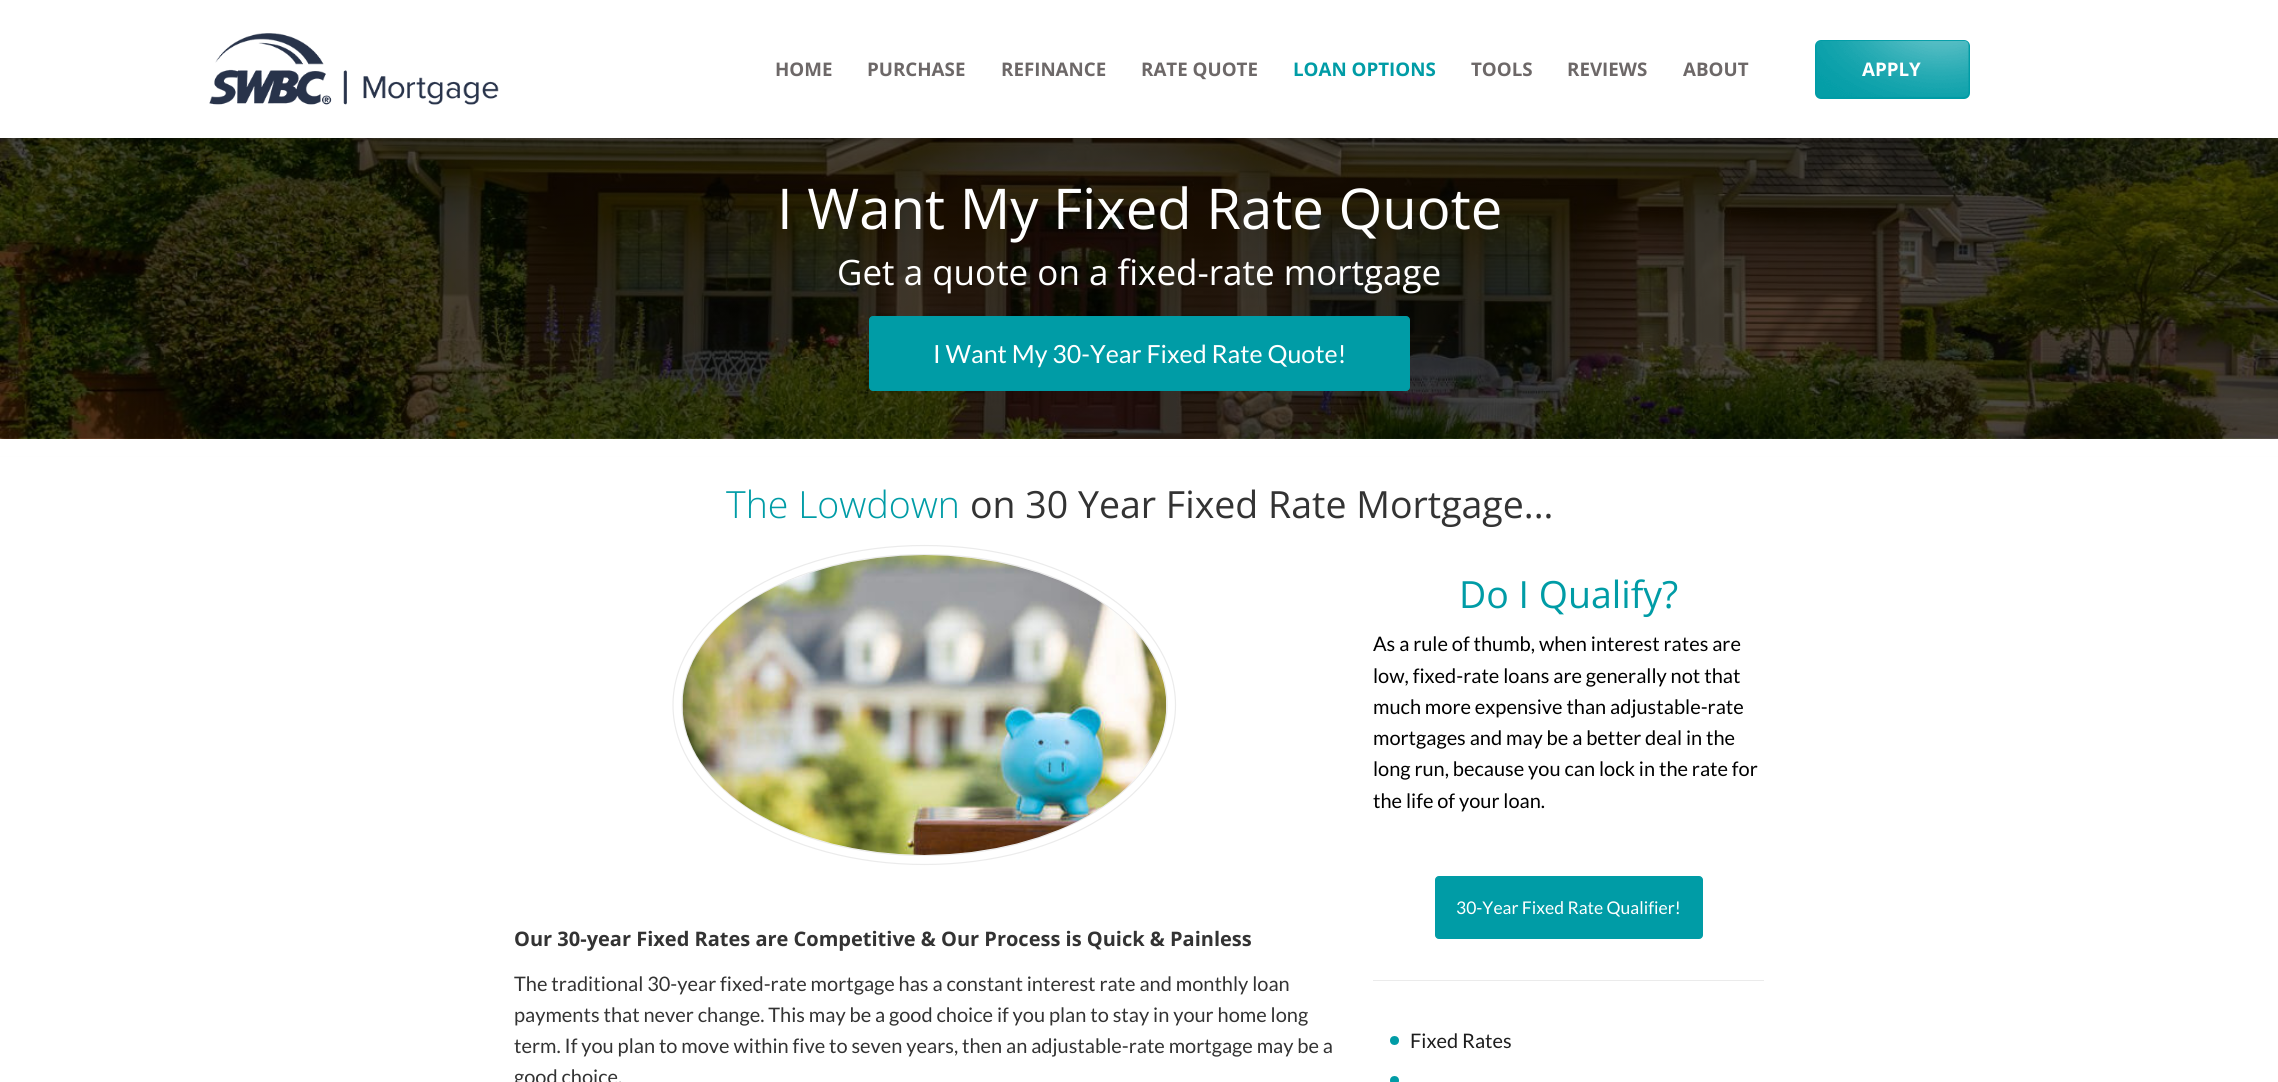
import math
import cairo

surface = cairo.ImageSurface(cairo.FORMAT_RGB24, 2278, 1082)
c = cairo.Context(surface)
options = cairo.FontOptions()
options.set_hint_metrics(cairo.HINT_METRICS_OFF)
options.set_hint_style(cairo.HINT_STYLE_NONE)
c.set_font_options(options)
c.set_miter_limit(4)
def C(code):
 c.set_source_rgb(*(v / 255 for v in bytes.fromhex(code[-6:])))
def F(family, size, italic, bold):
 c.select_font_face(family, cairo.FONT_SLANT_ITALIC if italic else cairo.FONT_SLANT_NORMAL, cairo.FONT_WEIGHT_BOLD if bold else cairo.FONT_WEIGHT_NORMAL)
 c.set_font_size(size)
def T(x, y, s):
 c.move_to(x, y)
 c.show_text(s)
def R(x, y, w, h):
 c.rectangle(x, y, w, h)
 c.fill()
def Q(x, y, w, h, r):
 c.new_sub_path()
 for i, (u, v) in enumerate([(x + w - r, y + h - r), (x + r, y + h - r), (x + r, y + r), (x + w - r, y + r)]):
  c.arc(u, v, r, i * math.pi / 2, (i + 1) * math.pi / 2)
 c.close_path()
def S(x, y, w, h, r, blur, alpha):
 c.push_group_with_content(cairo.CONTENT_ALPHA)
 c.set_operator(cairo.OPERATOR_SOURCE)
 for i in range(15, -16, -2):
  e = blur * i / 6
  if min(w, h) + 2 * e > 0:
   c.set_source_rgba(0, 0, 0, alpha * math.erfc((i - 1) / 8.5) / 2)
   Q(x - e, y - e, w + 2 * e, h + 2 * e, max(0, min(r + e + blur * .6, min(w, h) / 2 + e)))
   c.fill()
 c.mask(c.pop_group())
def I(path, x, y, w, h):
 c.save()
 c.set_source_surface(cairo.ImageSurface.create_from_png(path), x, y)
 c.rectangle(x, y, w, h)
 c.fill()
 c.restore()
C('ffffff')
c.paint()
C('000000')
S(0,143,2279,301,0,5,1)
I('3.png',0,138,2278,301)
S(4,4,2271,130,0,6,.5)
C('ffffff')
R(0,0,2278,138)
I('1.png',209,33,290,72)
F('Open Sans',18.75,0,1)
C('6d6868')
T(775,76,'HOME')
T(867,76,'PURCHASE')
T(1001,76,'REFINANCE')
T(1141,76,'RATE QUOTE')
C('009ca6')
T(1293,76,'LOAN OPTIONS')
C('6d6868')
T(1471,76,'TOOLS')
T(1567,76,'REVIEWS')
T(1683,76,'ABOUT')
C('009ca6')
Q(1815,40,155,59,6)
c.fill()
C('ffffff')
T(1862,76,'APPLY')
I('2.png',1816,40,153,57)
F('Open Sans',56.25,0,0)
T(777,229,'I Want My Fixed Rate Quote')
F('Open Sans',35,0,0)
T(837,285,'Get a quote on a fixed-rate mortgage')
C('009ca6')
Q(869.5,316.5,540,74,3.5)
c.fill_preserve()
c.set_line_width(1)
c.stroke()
F('Lato',25,0,0)
C('ffffff')
T(933,363,'I Want My 30-Year Fixed Rate Quote!')
R(0,439,2278,17)
F('Open Sans Light',37.5,0,0)
C('009ca6')
T(726,518,'The Lowdown')
F('Open Sans',37.5,0,0)
C('333333')
T(970,518,'on 30 Year Fixed Rate Mortgage...')
c.new_path()
c.move_to(924.5,545.5)
c.curve_to(1063,545.5,1175.5,617,1175.5,705)
c.curve_to(1175.5,793,1063,864.5,924.5,864.5)
c.curve_to(785.5,864.5,673,793,673,705)
c.curve_to(673,617,785.5,545.5,924.5,545.5)
c.close_path()
C('ebebeb')
c.set_line_width(1.2)
c.stroke()
c.new_path()
c.move_to(924.5,554.5)
c.curve_to(1058.5,554.5,1167,622,1167,705)
c.curve_to(1167,788,1058.5,855.5,924.5,855.5)
c.curve_to(790.5,855.5,682,788,682,705)
c.curve_to(682,622,790.5,554.5,924.5,554.5)
c.close_path()
c.stroke()
I('4.png',682,555,485,300)
F('Open Sans',20,0,1)
C('333333')
T(514,946,'Our 30-year Fixed Rates are Competitive & Our Process is Quick & Painless')
F('Lato',20,0,0)
T(514,991,'The traditional 30-year fixed-rate mortgage has a constant interest rate and monthly loan')
T(514,1022,'payments that never change. This may be a good choice if you plan to stay in your home long')
T(514,1053,'term. If you plan to move within five to seven years, then an adjustable-rate mortgage may be a')
T(514,1084,'good choice.')
F('Open Sans',37.5,0,0)
C('009ca6')
T(1459,608,'Do I Qualify?')
F('Lato',20,0,0)
C('000000')
T(1373,651,'As a rule of thumb, when interest rates are')
T(1373,683,'low, fixed-rate loans are generally not that')
T(1373,714,'much more expensive than adjustable-rate')
T(1373,745,'mortgages and may be a better deal in the')
T(1373,776,'long run, because you can lock in the rate for')
T(1373,808,'the life of your loan.')
C('009ca6')
Q(1435.5,876.5,267,62,3.5)
c.fill_preserve()
c.set_line_width(1)
c.stroke()
F('Lato',17.5,0,0)
C('ffffff')
T(1456,914,'30-Year Fixed Rate Qualifier!')
C('ebebeb')
R(1373,980,391,1)
C('009ca6')
c.new_path()
c.arc(1394.5,1040.5,4.5,0,2 * math.pi)
c.fill()
F('Lato',20,0,0)
C('1d1d1d')
T(1410,1048,'Fixed Rates')
C('009ca6')
c.new_path()
c.arc(1394.5,1080.5,4.5,0,2 * math.pi)
c.fill()
surface.write_to_png('o.png')
